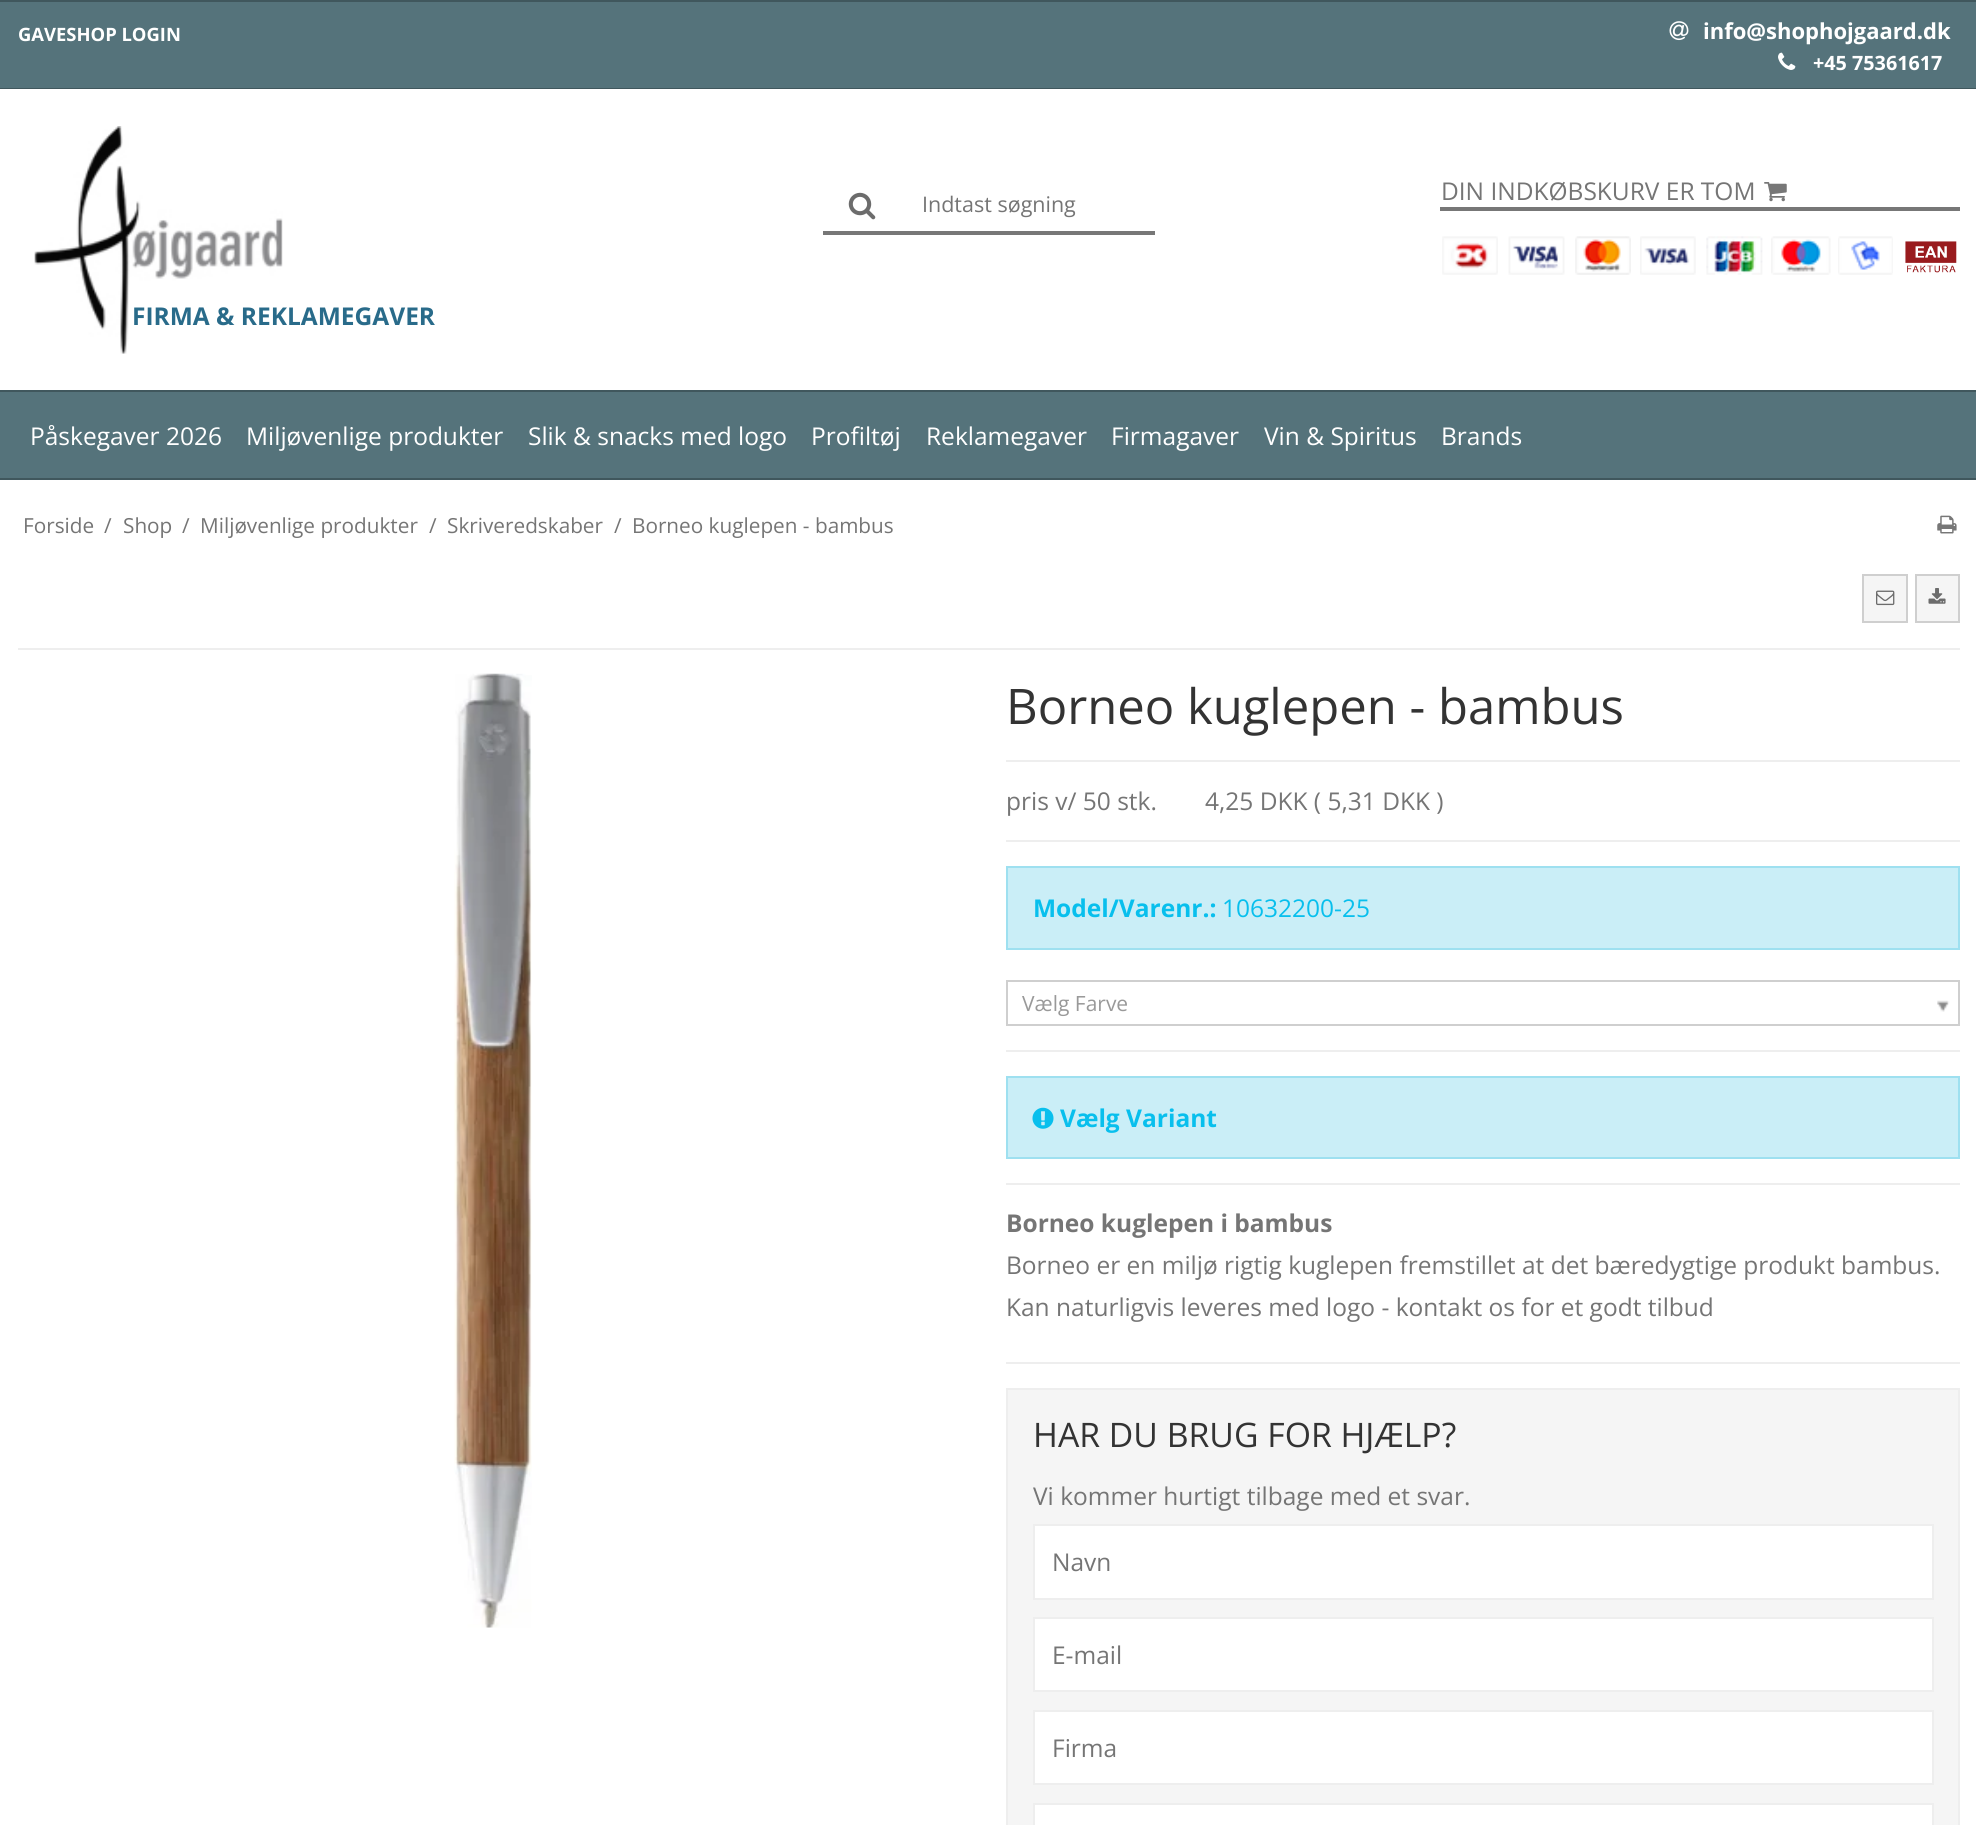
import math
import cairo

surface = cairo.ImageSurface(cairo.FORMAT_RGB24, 1976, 1825)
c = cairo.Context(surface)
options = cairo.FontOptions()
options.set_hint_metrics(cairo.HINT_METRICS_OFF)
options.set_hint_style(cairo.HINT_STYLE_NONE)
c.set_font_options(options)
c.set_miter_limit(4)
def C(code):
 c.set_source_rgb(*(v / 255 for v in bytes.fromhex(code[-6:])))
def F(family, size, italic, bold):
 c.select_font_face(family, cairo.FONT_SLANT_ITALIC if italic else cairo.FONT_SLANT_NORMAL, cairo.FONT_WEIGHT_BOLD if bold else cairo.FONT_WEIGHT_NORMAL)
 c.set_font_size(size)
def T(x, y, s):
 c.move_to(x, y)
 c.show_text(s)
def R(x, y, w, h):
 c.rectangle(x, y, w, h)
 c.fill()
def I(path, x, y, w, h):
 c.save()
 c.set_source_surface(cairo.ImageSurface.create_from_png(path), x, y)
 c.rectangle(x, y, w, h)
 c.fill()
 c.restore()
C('ffffff')
c.paint()
C('55737b')
R(0,2,1976,86)
C('40575d')
R(0,0,1976,2)
R(0,88,1976,1)
F('Open Sans',18.4,0,1)
C('ffffff')
T(18,41,'GAVESHOP LOGIN')
I('1.png',1669,21,20,20)
F('Open Sans',22,0,1)
T(1703,39,'info@shophojgaard.dk')
I('2.png',1778,52,18,18)
F('Open Sans',19.75,0,1)
T(1813,70,'+45 75361617')
C('777777')
R(1440,207,520,4)
F('Open Sans',24.5,0,0)
C('757575')
T(1441,200,'DIN INDKØBSKURV ER TOM')
I('3.png',1764,182,23,20)
I('4.png',1442,236,56,39)
I('5.png',1508,236,57,39)
I('6.png',1575,236,56,39)
I('7.png',1640,236,56,39)
I('8.png',1706,236,57,39)
I('9.png',1771,236,60,39)
I('10.png',1838,236,55,39)
I('11.png',1905,241,52,32)
C('777777')
R(823,231,332,4)
I('12.png',848,192,28,28)
F('Open Sans',21.5,0,0)
C('757575')
T(922,212,'Indtast søgning')
I('13.png',34,126,249,228)
F('Open Sans',24.5,0,1)
C('296b8a')
T(132,325,'FIRMA & REKLAMEGAVER')
C('55737b')
R(0,392,1976,86)
C('40575d')
R(0,390,1976,2)
R(0,478,1976,2)
F('Open Sans',24.5,0,0)
C('ffffff')
T(30,445,'Påskegaver 2026')
T(246,445,'Miljøvenlige produkter')
T(528,445,'Slik & snacks med logo')
T(811,445,'Profiltøj')
T(926,445,'Reklamegaver')
T(1111,445,'Firmagaver')
T(1264,445,'Vin & Spiritus')
T(1441,445,'Brands')
F('Open Sans',20.75,0,0)
C('757575')
T(23,533,'Forside')
T(104,533,'/')
T(123,533,'Shop')
T(182,533,'/')
T(200,533,'Miljøvenlige produkter')
T(429,533,'/')
T(447,533,'Skriveredskaber')
T(614,533,'/')
T(632,533,'Borneo kuglepen - bambus')
I('14.png',1937,515,20,19)
C('f5f5f5')
c.rectangle(1863,575,44,47)
c.fill_preserve()
C('cfcfcf')
c.stroke()
I('15.png',1876,590,19,16)
C('f5f5f5')
c.rectangle(1916,575,43,47)
c.fill_preserve()
C('cfcfcf')
c.stroke()
I('16.png',1928,588,18,16)
C('eeeeee')
R(18,648,1942,2)
I('17.png',454,673,78,955)
R(1006,760,954,2)
F('Open Sans',49,0,0)
C('333333')
T(1006,724,'Borneo kuglepen - bambus')
F('Open Sans',24.5,0,0)
C('757575')
T(1006,810,'pris v/ 50 stk.')
T(1205,810,'4,25 DKK ( 5,31 DKK )')
C('eeeeee')
R(1006,840,954,2)
C('caeef7')
c.rectangle(1007,867,952,82)
c.fill_preserve()
C('9ee0f0')
c.stroke()
F('Open Sans',24.5,0,1)
C('08bfed')
T(1033,917,'Model/Varenr.:')
F('Open Sans',24.5,0,0)
T(1222,917,'10632200-25')
c.rectangle(1007,981,952,44)
C('cfcfcf')
c.stroke()
F('Open Sans',21,0,0)
C('999999')
T(1022,1011,'Vælg Farve')
I('18.png',1937,1000,13,12)
C('eeeeee')
R(1006,1050,954,2)
C('caeef7')
c.rectangle(1007,1077,952,81)
c.fill_preserve()
C('9ee0f0')
c.stroke()
I('19.png',1032,1107,22,22)
F('Open Sans',24.5,0,1)
C('08bfed')
T(1060,1127,'Vælg Variant')
C('eeeeee')
R(1006,1183,954,2)
C('757575')
T(1006,1232,'Borneo kuglepen i bambus')
F('Open Sans',24.5,0,0)
T(1006,1274,'Borneo er en miljø rigtig kuglepen fremstillet at det bæredygtige produkt bambus.')
T(1006,1316,'Kan naturligvis leveres med logo - kontakt os for et godt tilbud')
C('eeeeee')
R(1006,1362,954,2)
C('f5f5f5')
c.rectangle(1007,1389,952,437)
c.fill_preserve()
C('eeeeee')
c.stroke()
F('Open Sans',33.75,0,0)
C('333333')
T(1033,1447,'HAR DU BRUG FOR HJÆLP?')
F('Open Sans',24.5,0,0)
C('757575')
T(1033,1505,'Vi kommer hurtigt tilbage med et svar.')
C('ffffff')
c.rectangle(1034,1525,899,74)
c.fill_preserve()
C('eeeeee')
c.stroke()
C('757575')
T(1052,1571,'Navn')
C('ffffff')
c.rectangle(1034,1618,899,73)
c.fill_preserve()
C('eeeeee')
c.stroke()
C('757575')
T(1052,1664,'E-mail')
C('ffffff')
c.rectangle(1034,1711,899,73)
c.fill_preserve()
C('eeeeee')
c.stroke()
C('757575')
T(1052,1757,'Firma')
C('ffffff')
c.rectangle(1034,1804,899,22)
c.fill_preserve()
C('eeeeee')
c.stroke()
surface.write_to_png('o.png')
